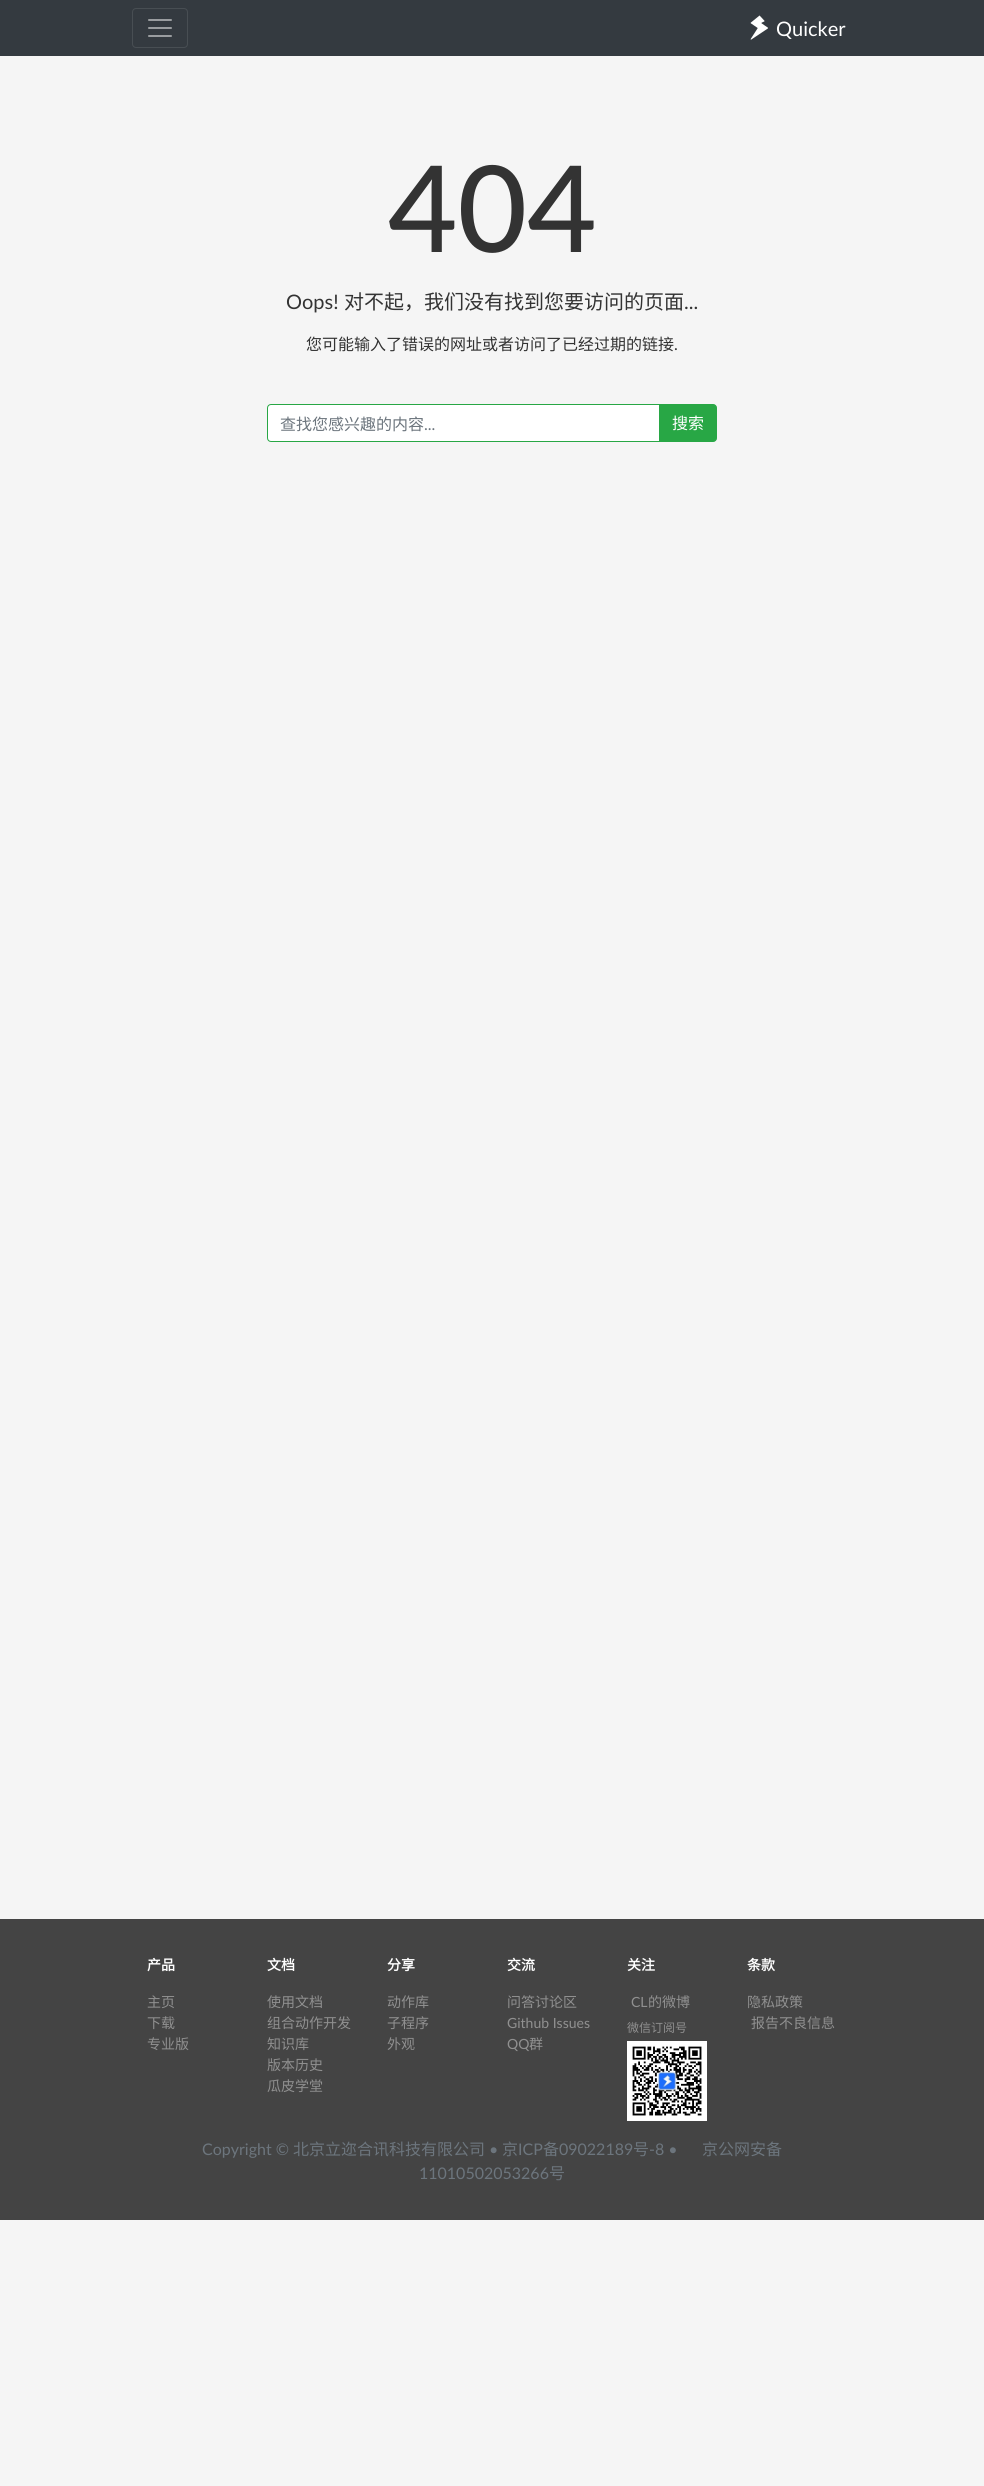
import math
import cairo

surface = cairo.ImageSurface(cairo.FORMAT_RGB24, 984, 2486)
c = cairo.Context(surface)
options = cairo.FontOptions()
options.set_hint_metrics(cairo.HINT_METRICS_OFF)
options.set_hint_style(cairo.HINT_STYLE_NONE)
c.set_font_options(options)
c.set_miter_limit(4)
def C(code):
 c.set_source_rgb(*(v / 255 for v in bytes.fromhex(code[-6:])))
def F(family, size, italic, bold):
 c.select_font_face(family, cairo.FONT_SLANT_ITALIC if italic else cairo.FONT_SLANT_NORMAL, cairo.FONT_WEIGHT_BOLD if bold else cairo.FONT_WEIGHT_NORMAL)
 c.set_font_size(size)
def T(x, y, s):
 c.move_to(x, y)
 c.show_text(s)
def R(x, y, w, h):
 c.rectangle(x, y, w, h)
 c.fill()
def Q(x, y, w, h, r):
 c.new_sub_path()
 for i, (u, v) in enumerate([(x + w - r, y + h - r), (x + r, y + h - r), (x + r, y + r), (x + w - r, y + r)]):
  c.arc(u, v, r, i * math.pi / 2, (i + 1) * math.pi / 2)
 c.close_path()
def I(path, x, y, w, h):
 c.save()
 c.set_source_surface(cairo.ImageSurface.create_from_png(path), x, y)
 c.rectangle(x, y, w, h)
 c.fill()
 c.restore()
C('f5f5f5')
c.paint()
C('343a40')
R(0,0,984,56)
Q(132.5,8.5,55,39,3.5)
C('484e53')
c.set_line_width(1)
c.stroke()
I('1.png',148,19,24,18)
I('2.png',750,15,18,25)
F('Lato',20,0,0)
C('ffffff')
T(776,36,'Quicker')
F('Lato Medium',120,0,0)
C('333333')
T(388,252,'404')
F('Lato',20,0,0)
T(286,309,'Oops!')
F('Noto Sans CJK SC',20,0,0)
T(344,309,'对不起，我们没有找到您要访问的页面')
F('Lato',20,0,0)
T(684,309,'...')
F('Noto Sans CJK SC',16,0,0)
T(306,350,'您可能输入了错误的网址或者访问了已经过期的链接')
F('Lato',16,0,0)
T(674,350,'.')
C('ffffff')
c.new_path()
c.move_to(271,404.5)
c.line_to(659.5,404.5)
c.line_to(659.5,441.5)
c.line_to(271,441.5)
c.curve_to(269,441.5,267.5,440,267.5,438)
c.line_to(267.5,408)
c.curve_to(267.5,406,269,404.5,271,404.5)
c.close_path()
c.fill_preserve()
C('28a745')
c.stroke()
F('Noto Sans CJK SC',16,0,0)
C('6c757d')
T(280,430,'查找您感兴趣的内容')
F('Lato',16,0,0)
T(424,430,'...')
C('28a745')
c.new_path()
c.move_to(659.5,404.5)
c.line_to(713,404.5)
c.curve_to(715,404.5,716.5,406,716.5,408)
c.line_to(716.5,438)
c.curve_to(716.5,440,715,441.5,713,441.5)
c.line_to(659.5,441.5)
c.close_path()
c.fill_preserve()
c.stroke()
F('Noto Sans CJK SC',16,0,0)
C('ffffff')
T(672,429,'搜索')
C('444444')
R(0,1919,984,301)
F('Noto Sans CJK SC',14,0,1)
C('ffffff')
T(147,1970,'产品')
F('Noto Sans CJK SC',14,0,0)
C('909090')
T(147,2007,'主页')
T(147,2028,'下载')
T(147,2049,'专业版')
F('Noto Sans CJK SC',14,0,1)
C('ffffff')
T(267,1970,'文档')
F('Noto Sans CJK SC',14,0,0)
C('909090')
T(267,2007,'使用文档')
T(267,2028,'组合动作开发')
T(267,2049,'知识库')
T(267,2070,'版本历史')
T(267,2091,'瓜皮学堂')
F('Noto Sans CJK SC',14,0,1)
C('ffffff')
T(387,1970,'分享')
F('Noto Sans CJK SC',14,0,0)
C('909090')
T(387,2007,'动作库')
T(387,2028,'子程序')
T(387,2049,'外观')
F('Noto Sans CJK SC',14,0,1)
C('ffffff')
T(507,1970,'交流')
F('Noto Sans CJK SC',14,0,0)
C('909090')
T(507,2007,'问答讨论区')
F('Lato',14,0,0)
T(507,2028,'Github Issues')
T(507,2049,'QQ')
F('Noto Sans CJK SC',14,0,0)
T(529,2049,'群')
F('Noto Sans CJK SC',14,0,1)
C('ffffff')
T(627,1970,'关注')
F('Lato',14,0,0)
C('909090')
T(631,2007,'CL')
F('Noto Sans CJK SC',14,0,0)
T(648,2007,'的微博')
F('Noto Sans CJK SC',12,0,0)
T(627,2032,'微信订阅号')
I('3.png',627,2041,80,80)
F('Noto Sans CJK SC',14,0,1)
C('ffffff')
T(747,1970,'条款')
F('Noto Sans CJK SC',14,0,0)
C('909090')
T(747,2007,'隐私政策')
T(751,2028,'报告不良信息')
F('Lato',16,0,0)
C('6c757d')
T(202,2155,'Copyright ©')
F('Noto Sans CJK SC',16,0,0)
T(293,2155,'北京立迩合讯科技有限公司')
F('Lato',16,0,0)
T(489,2155,'•')
F('Noto Sans CJK SC',16,0,0)
T(502,2155,'京')
F('Lato',16,0,0)
T(518,2155,'ICP')
F('Noto Sans CJK SC',16,0,0)
T(543,2155,'备')
F('Lato',16,0,0)
T(559,2155,'09022189')
F('Noto Sans CJK SC',16,0,0)
T(633,2155,'号')
F('Lato',16,0,0)
T(649,2155,'-8 •')
F('Noto Sans CJK SC',16,0,0)
T(702,2155,'京公网安备')
F('Lato',16,0,0)
T(419,2179,'11010502053266')
F('Noto Sans CJK SC',16,0,0)
T(549,2179,'号')
surface.write_to_png('o.png')
